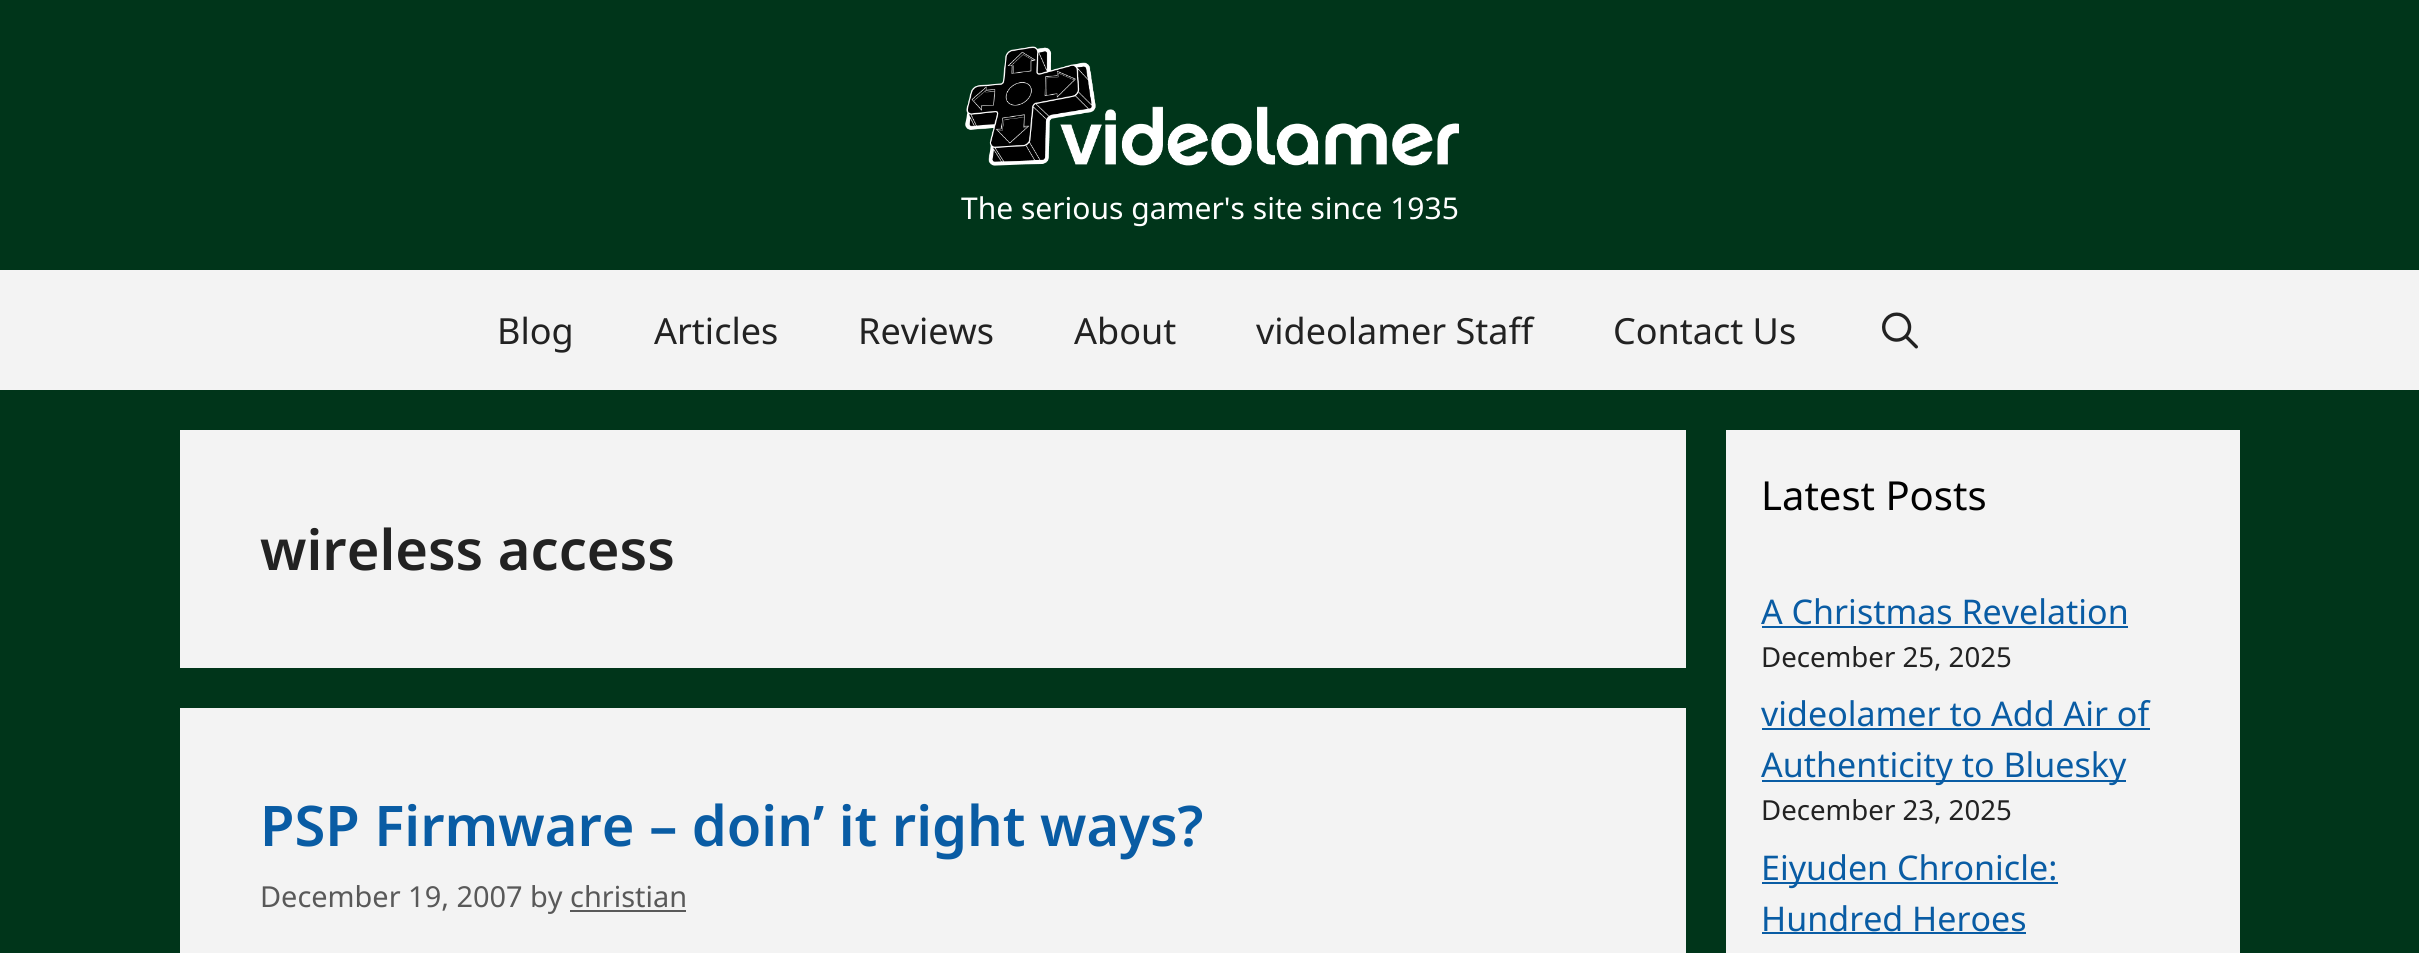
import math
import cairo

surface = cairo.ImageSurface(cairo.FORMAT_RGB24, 2419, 953)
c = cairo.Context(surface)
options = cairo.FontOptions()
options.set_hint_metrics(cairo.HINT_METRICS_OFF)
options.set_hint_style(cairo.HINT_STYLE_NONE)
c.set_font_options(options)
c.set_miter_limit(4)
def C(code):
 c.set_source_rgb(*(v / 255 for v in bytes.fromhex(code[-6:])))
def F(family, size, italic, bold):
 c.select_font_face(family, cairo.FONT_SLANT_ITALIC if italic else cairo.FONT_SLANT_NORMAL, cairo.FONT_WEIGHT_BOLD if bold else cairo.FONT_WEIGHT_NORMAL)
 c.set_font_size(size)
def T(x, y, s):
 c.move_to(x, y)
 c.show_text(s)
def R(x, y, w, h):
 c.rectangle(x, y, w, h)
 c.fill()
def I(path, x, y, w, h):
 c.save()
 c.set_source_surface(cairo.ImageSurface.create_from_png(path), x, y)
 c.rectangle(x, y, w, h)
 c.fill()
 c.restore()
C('00351a')
c.paint()
I('1.png',965,46,494,120)
F('Noto Sans',30,0,0)
C('ffffff')
T(961,219,'The serious gamer\'s site since 1935')
C('f3f3f3')
R(0,270,2419,120)
F('Noto Sans',36,0,0)
C('222222')
T(497,344,'Blog')
T(654,344,'Articles')
T(858,344,'Reviews')
T(1074,344,'About')
T(1256,344,'videolamer Staff')
T(1613,344,'Contact Us')
I('2.png',1882,312,36,37)
C('f3f3f3')
R(180,430,1506,238)
F('Noto Sans SemiBold',56,0,0)
C('222222')
T(260,570,'wireless access')
C('f3f3f3')
R(180,708,1506,245)
C('095ca4')
T(260,846,'PSP Firmware – doin’ it right ways?')
F('Noto Sans',28.9,0,0)
C('595959')
T(260,907,'December 19, 2007 by christian')
R(570,910,116,2)
C('f3f3f3')
R(1726,430,514,523)
F('Noto Sans',40,0,0)
C('000000')
T(1761,510,'Latest Posts')
F('Noto Sans',34,0,0)
C('095ca4')
T(1761,624,'A Christmas Revelation')
R(1762,626,366,2)
F('Noto Sans',27.6,0,0)
C('222222')
T(1761,667,'December 25, 2025')
F('Noto Sans',34,0,0)
C('095ca4')
T(1761,726,'videolamer to Add Air of')
R(1762,728,388,2)
R(1762,780,364,2)
T(1761,777,'Authenticity to Bluesky')
F('Noto Sans',27.6,0,0)
C('222222')
T(1761,820,'December 23, 2025')
C('095ca4')
R(1762,882,296,2)
F('Noto Sans',34,0,0)
T(1761,880,'Eiyuden Chronicle:')
T(1761,931,'Hundred Heroes')
R(1762,932,264,2)
surface.write_to_png('o.png')
